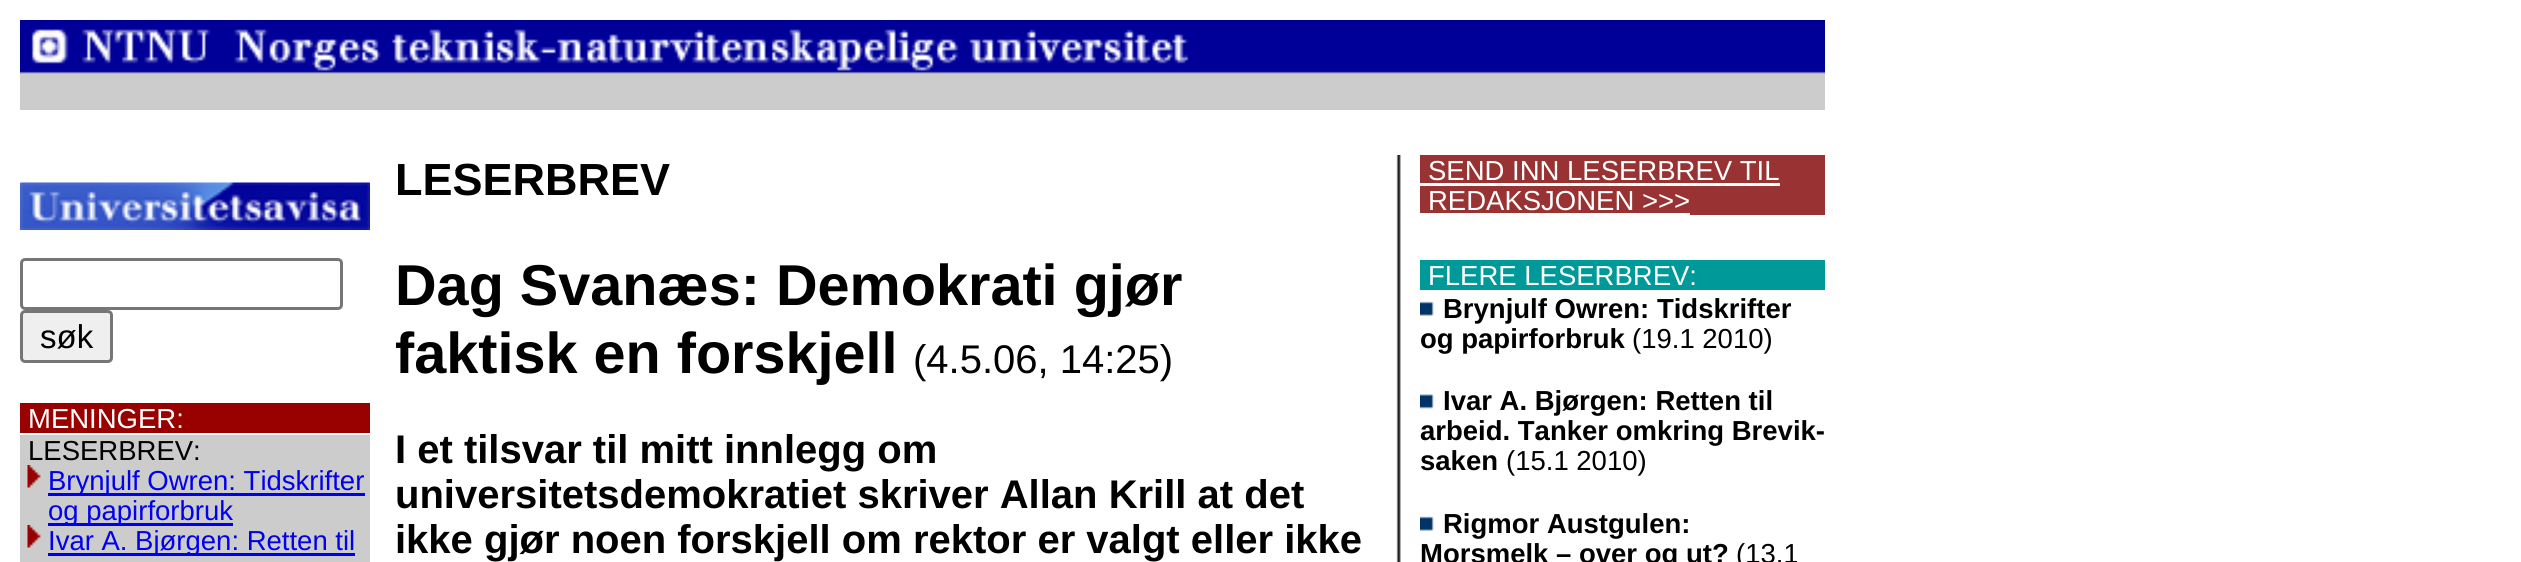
#include <cairo/cairo.h>
#include <math.h>
#include <stddef.h>

static cairo_t *cr;

static void use_color(int r, int g, int b) {
  cairo_set_source_rgb(cr, r / 255.0, g / 255.0, b / 255.0);
}

static void text(double x, double y, const char *s, const char *family, double size, int italic, int bold, int r, int g, int b) {
  cairo_select_font_face(cr, family, italic ? CAIRO_FONT_SLANT_ITALIC : CAIRO_FONT_SLANT_NORMAL,
    bold ? CAIRO_FONT_WEIGHT_BOLD : CAIRO_FONT_WEIGHT_NORMAL);
  cairo_set_font_size(cr, size);
  use_color(r, g, b);
  cairo_move_to(cr, x, y);
  cairo_show_text(cr, s);
}

static void box(double x, double y, double w, double h, int r, int g, int b) {
  use_color(r, g, b);
  cairo_rectangle(cr, x, y, w, h);
  cairo_fill(cr);
}

static void round_rect(double x, double y, double w, double h, double r) {
  cairo_new_sub_path(cr);
  cairo_arc(cr, x + w - r, y + h - r, r, 0, M_PI / 2);
  cairo_arc(cr, x + r, y + h - r, r, M_PI / 2, M_PI);
  cairo_arc(cr, x + r, y + r, r, M_PI, 1.5 * M_PI);
  cairo_arc(cr, x + w - r, y + r, r, 1.5 * M_PI, 2 * M_PI);
  cairo_close_path(cr);
}

static void picture(const char *path, double x, double y, double w, double h) {
  cairo_surface_t *image = cairo_image_surface_create_from_png(path);
  cairo_save(cr);
  cairo_set_source_surface(cr, image, x, y);
  cairo_rectangle(cr, x, y, w, h);
  cairo_fill(cr);
  cairo_restore(cr);
  cairo_surface_destroy(image);
}

static void draw(void) {
  use_color(255, 255, 255);
  cairo_paint(cr);
  picture("img_01.png", 20, 20, 1805, 90);
  picture("img_02.png", 20, 182, 350, 48);
  round_rect(21.5, 259.5, 320, 49, 3.5);
  use_color(118, 118, 118);
  cairo_set_line_width(cr, 3);
  cairo_stroke(cr);
  use_color(239, 239, 239);
  round_rect(21.5, 311.5, 90, 50, 3.5);
  cairo_fill_preserve(cr);
  use_color(118, 118, 118);
  cairo_stroke(cr);
  box(20, 403, 350, 30, 153, 0, 0);
  box(20, 435, 350, 127, 204, 204, 204);
  picture("img_03.png", 27, 465, 14, 23);
  box(48, 493, 317, 3, 0, 0, 238);
  box(48, 523, 185, 3, 0, 0, 238);
  picture("img_03.png", 27, 525, 14, 23);
  box(48, 553, 307, 3, 0, 0, 238);
  picture("img_04.png", 1396, 155, 5, 407);
  box(1420, 155, 405, 60, 153, 51, 51);
  box(1420, 183, 360, 3, 255, 255, 255);
  box(1420, 213, 270, 2, 255, 255, 255);
  box(1420, 260, 405, 30, 0, 153, 153);
  picture("img_05.png", 1420, 301, 14, 15);
  picture("img_06.png", 1420, 394, 14, 15);
  picture("img_07.png", 1420, 516, 14, 15);
  text(40, 348, "søk", "Liberation Sans", 33, 0, 0, 0, 0, 0);
  text(28, 428, "MENINGER:", "Liberation Sans", 27.5, 0, 0, 255, 255, 255);
  text(28, 460, "LESERBREV:", "Liberation Sans", 27.5, 0, 0, 0, 0, 0);
  text(48, 490, "Brynjulf Owren: Tidskrifter", "Liberation Sans", 27.5, 0, 0, 0, 0, 238);
  text(48, 520, "og papirforbruk", "Liberation Sans", 27.5, 0, 0, 0, 0, 238);
  text(48, 550, "Ivar A. Bjørgen: Retten til", "Liberation Sans", 27.5, 0, 0, 0, 0, 238);
  text(395, 195, "LESERBREV", "Liberation Sans", 45, 0, 1, 0, 0, 0);
  text(395, 305, "Dag Svanæs: Demokrati gjør", "Liberation Sans", 57.6, 0, 1, 0, 0, 0);
  text(395, 373, "faktisk en forskjell", "Liberation Sans", 57.6, 0, 1, 0, 0, 0);
  text(913, 373, "(4.5.06, 14:25)", "Liberation Sans", 40, 0, 0, 0, 0, 0);
  text(395, 463, "I et tilsvar til mitt innlegg om", "Liberation Sans", 40, 0, 1, 0, 0, 0);
  text(395, 508, "universitetsdemokratiet skriver Allan Krill at det", "Liberation Sans", 40, 0, 1, 0, 0, 0);
  text(395, 553, "ikke gjør noen forskjell om rektor er valgt eller ikke", "Liberation Sans", 40, 0, 1, 0, 0, 0);
  text(1428, 180, "SEND INN LESERBREV TIL", "Liberation Sans", 27.5, 0, 0, 255, 255, 255);
  text(1428, 210, "REDAKSJONEN >>>", "Liberation Sans", 27.5, 0, 0, 255, 255, 255);
  text(1428, 285, "FLERE LESERBREV:", "Liberation Sans", 27.5, 0, 0, 255, 255, 255);
  text(1443, 318, "Brynjulf Owren: Tidskrifter", "Liberation Sans", 27.5, 0, 1, 0, 0, 0);
  text(1420, 348, "og papirforbruk", "Liberation Sans", 27.5, 0, 1, 0, 0, 0);
  text(1632, 348, "(19.1 2010)", "Liberation Sans", 27.5, 0, 0, 0, 0, 0);
  text(1443, 410, "Ivar A. Bjørgen: Retten til", "Liberation Sans", 27.5, 0, 1, 0, 0, 0);
  text(1420, 440, "arbeid. Tanker omkring Brevik-", "Liberation Sans", 27.5, 0, 1, 0, 0, 0);
  text(1420, 470, "saken", "Liberation Sans", 27.5, 0, 1, 0, 0, 0);
  text(1506, 470, "(15.1 2010)", "Liberation Sans", 27.5, 0, 0, 0, 0, 0);
  text(1443, 533, "Rigmor Austgulen:", "Liberation Sans", 27.5, 0, 1, 0, 0, 0);
  text(1420, 563, "Morsmelk – over og ut?", "Liberation Sans", 27.5, 0, 1, 0, 0, 0);
  text(1736, 563, "(13.1", "Liberation Sans", 27.5, 0, 0, 0, 0, 0);
}

int main(void) {
  cairo_surface_t *surface = cairo_image_surface_create(CAIRO_FORMAT_RGB24, 2521, 562);
  cr = cairo_create(surface);
  cairo_font_options_t *options = cairo_font_options_create();
  cairo_font_options_set_hint_metrics(options, CAIRO_HINT_METRICS_OFF);
  cairo_font_options_set_hint_style(options, CAIRO_HINT_STYLE_NONE);
  cairo_set_font_options(cr, options);
  cairo_set_miter_limit(cr, 4);
  draw();
  cairo_surface_write_to_png(surface, "out.png");
  cairo_font_options_destroy(options);
  cairo_destroy(cr);
  cairo_surface_destroy(surface);
  return 0;
}
